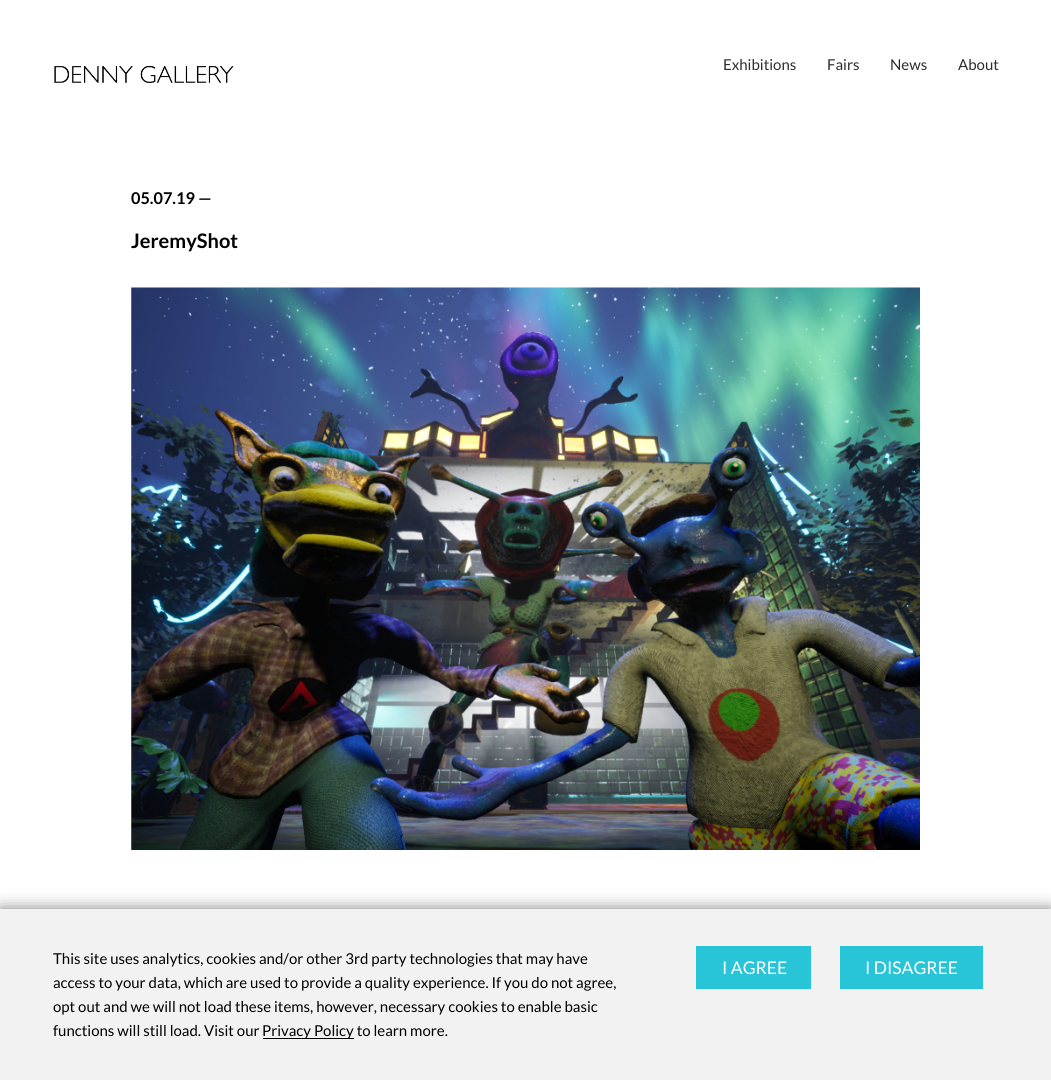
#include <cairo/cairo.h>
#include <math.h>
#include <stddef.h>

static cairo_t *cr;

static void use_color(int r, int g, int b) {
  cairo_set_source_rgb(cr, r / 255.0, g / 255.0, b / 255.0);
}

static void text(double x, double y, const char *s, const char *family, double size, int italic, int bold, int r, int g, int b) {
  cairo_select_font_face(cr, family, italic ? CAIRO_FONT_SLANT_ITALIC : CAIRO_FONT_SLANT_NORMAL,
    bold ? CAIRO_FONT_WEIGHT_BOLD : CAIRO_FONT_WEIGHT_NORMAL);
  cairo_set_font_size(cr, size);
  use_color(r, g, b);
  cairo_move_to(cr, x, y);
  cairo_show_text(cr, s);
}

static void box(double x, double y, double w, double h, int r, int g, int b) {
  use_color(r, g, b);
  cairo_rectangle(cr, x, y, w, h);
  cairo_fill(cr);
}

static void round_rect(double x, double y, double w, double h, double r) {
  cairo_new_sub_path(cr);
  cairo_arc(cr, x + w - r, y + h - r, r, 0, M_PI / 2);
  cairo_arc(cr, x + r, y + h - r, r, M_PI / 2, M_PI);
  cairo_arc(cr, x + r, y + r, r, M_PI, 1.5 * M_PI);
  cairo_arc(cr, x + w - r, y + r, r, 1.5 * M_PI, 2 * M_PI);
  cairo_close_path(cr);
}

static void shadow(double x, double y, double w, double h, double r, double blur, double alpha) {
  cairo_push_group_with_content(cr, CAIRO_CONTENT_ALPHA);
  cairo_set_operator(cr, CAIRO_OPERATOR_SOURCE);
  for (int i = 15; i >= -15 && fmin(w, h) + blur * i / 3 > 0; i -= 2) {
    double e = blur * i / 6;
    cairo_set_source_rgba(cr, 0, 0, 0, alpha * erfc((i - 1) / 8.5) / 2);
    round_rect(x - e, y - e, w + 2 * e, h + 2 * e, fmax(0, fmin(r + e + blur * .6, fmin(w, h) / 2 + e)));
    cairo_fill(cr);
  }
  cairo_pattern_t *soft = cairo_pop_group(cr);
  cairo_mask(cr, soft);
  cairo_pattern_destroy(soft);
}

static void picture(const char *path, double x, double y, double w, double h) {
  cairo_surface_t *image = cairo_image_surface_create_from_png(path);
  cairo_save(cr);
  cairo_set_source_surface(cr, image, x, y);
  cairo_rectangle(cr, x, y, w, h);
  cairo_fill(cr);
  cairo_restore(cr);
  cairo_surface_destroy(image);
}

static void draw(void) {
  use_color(255, 255, 255);
  cairo_paint(cr);
  picture("img_01.png", 54, 65, 180, 18);
  picture("img_02.png", 131, 287, 789, 563);
  use_color(0, 0, 0);
  shadow(0, 909, 1051, 171, 0, 8, 0.5);
  box(0, 909, 1051, 171, 242, 242, 242);
  box(263, 1038, 91, 1, 0, 0, 0);
  box(696, 946, 115, 43, 40, 196, 216);
  box(840, 946, 143, 43, 40, 196, 216);
  text(723, 70, "Exhibitions", "Lato", 15, 0, 0, 44, 45, 46);
  text(827, 70, "Fairs", "Lato", 15, 0, 0, 44, 45, 46);
  text(890, 70, "News", "Lato", 15, 0, 0, 44, 45, 46);
  text(958, 70, "About", "Lato", 15, 0, 0, 44, 45, 46);
  text(131, 204, "05.07.19 —", "Lato", 16.25, 0, 1, 0, 0, 0);
  text(131, 248, "JeremyShot", "Lato", 20, 0, 1, 0, 0, 0);
  text(53, 964, "This site uses analytics, cookies and/or other 3rd party technologies that may have", "Lato", 15, 0, 0, 0, 0, 0);
  text(53, 988, "access to your data, which are used to provide a quality experience. If you do not agree,", "Lato", 15, 0, 0, 0, 0, 0);
  text(53, 1012, "opt out and we will not load these items, however, necessary cookies to enable basic", "Lato", 15, 0, 0, 0, 0, 0);
  text(53, 1036, "functions will still load. Visit our", "Lato", 15, 0, 0, 0, 0, 0);
  text(262, 1036, "Privacy Policy to learn more.", "Lato", 15, 0, 0, 0, 0, 0);
  text(722, 974, "I AGREE", "Lato", 17.5, 0, 0, 255, 255, 255);
  text(865, 974, "I DISAGREE", "Lato", 17.5, 0, 0, 255, 255, 255);
}

int main(void) {
  cairo_surface_t *surface = cairo_image_surface_create(CAIRO_FORMAT_RGB24, 1051, 1080);
  cr = cairo_create(surface);
  cairo_font_options_t *options = cairo_font_options_create();
  cairo_font_options_set_hint_metrics(options, CAIRO_HINT_METRICS_OFF);
  cairo_font_options_set_hint_style(options, CAIRO_HINT_STYLE_NONE);
  cairo_set_font_options(cr, options);
  cairo_set_miter_limit(cr, 4);
  draw();
  cairo_surface_write_to_png(surface, "out.png");
  cairo_font_options_destroy(options);
  cairo_destroy(cr);
  cairo_surface_destroy(surface);
  return 0;
}
